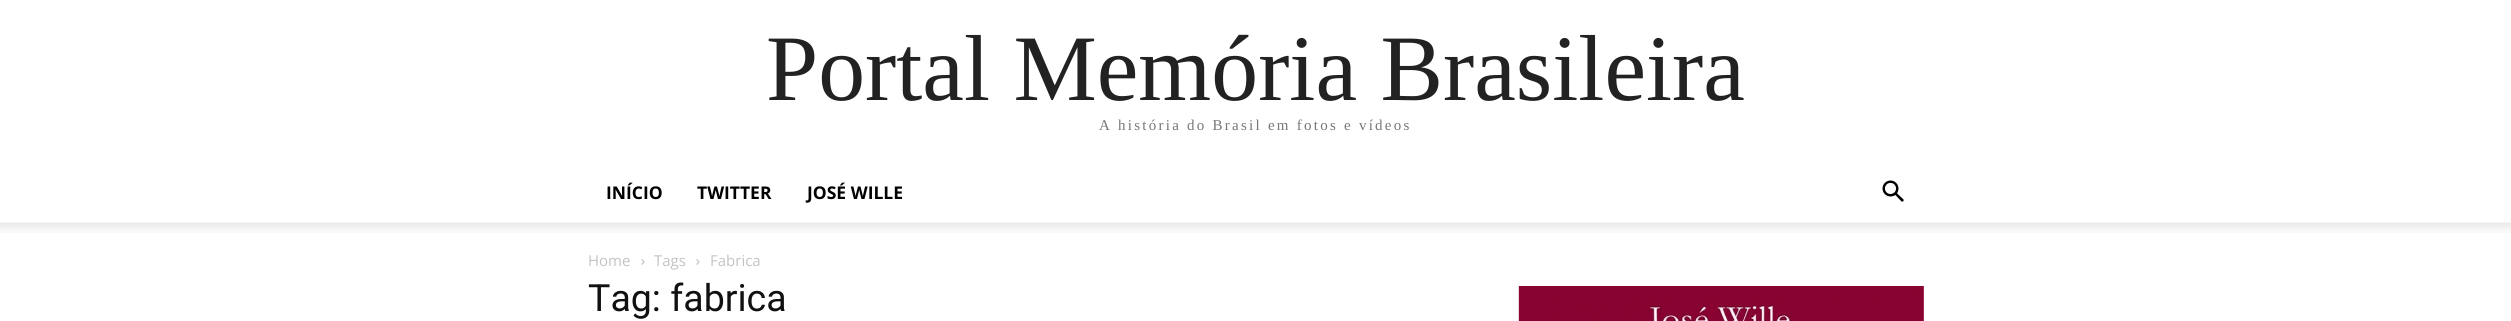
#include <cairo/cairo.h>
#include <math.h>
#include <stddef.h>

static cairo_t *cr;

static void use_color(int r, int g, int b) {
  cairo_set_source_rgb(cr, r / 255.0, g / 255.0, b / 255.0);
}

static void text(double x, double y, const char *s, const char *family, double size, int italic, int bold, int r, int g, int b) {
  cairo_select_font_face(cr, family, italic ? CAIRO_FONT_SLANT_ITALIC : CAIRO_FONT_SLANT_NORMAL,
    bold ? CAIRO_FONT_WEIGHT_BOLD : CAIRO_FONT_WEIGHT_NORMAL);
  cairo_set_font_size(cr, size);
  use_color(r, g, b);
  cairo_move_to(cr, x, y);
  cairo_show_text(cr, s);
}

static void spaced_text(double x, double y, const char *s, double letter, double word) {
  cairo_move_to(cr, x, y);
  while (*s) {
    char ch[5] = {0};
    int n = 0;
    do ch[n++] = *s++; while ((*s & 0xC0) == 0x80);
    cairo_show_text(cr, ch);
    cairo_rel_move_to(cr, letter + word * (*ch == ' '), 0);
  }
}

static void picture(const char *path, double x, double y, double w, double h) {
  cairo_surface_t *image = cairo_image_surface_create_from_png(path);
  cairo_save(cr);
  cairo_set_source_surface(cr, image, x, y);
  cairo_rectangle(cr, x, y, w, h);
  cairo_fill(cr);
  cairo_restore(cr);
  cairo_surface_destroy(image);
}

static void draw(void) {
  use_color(255, 255, 255);
  cairo_paint(cr);
  picture("img_01.png", 1882, 180, 22, 22);
  picture("img_02.png", 0, 222, 2511, 11);
  picture("img_03.png", 641, 259, 4, 6);
  picture("img_03.png", 696, 259, 4, 6);
  picture("img_04.png", 1518, 286, 406, 35);
  text(766, 100, "Portal Memória Brasileira", "Liberation Serif", 93.75, 0, 0, 34, 34, 34);
  cairo_set_font_size(cr, 15);
  use_color(119, 119, 119);
  spaced_text(1099, 130, "A história do Brasil em fotos e vídeos", 2.25, 0);
  text(606, 199, "INÍCIO", "Open Sans", 17.5, 0, 1, 0, 0, 0);
  text(697, 199, "TWITTER", "Open Sans", 17.5, 0, 1, 0, 0, 0);
  text(807, 199, "JOSÉ WILLE", "Open Sans", 17.5, 0, 1, 0, 0, 0);
  text(588, 266, "Home", "Open Sans", 15, 0, 0, 195, 195, 195);
  text(654, 266, "Tags", "Open Sans", 15, 0, 0, 195, 195, 195);
  text(710, 266, "Fabrica", "Open Sans", 15, 0, 0, 195, 195, 195);
  text(588, 311, "Tag: fabrica", "Roboto", 37.5, 0, 0, 17, 17, 17);
}

int main(void) {
  cairo_surface_t *surface = cairo_image_surface_create(CAIRO_FORMAT_RGB24, 2511, 321);
  cr = cairo_create(surface);
  cairo_font_options_t *options = cairo_font_options_create();
  cairo_font_options_set_hint_metrics(options, CAIRO_HINT_METRICS_OFF);
  cairo_font_options_set_hint_style(options, CAIRO_HINT_STYLE_NONE);
  cairo_set_font_options(cr, options);
  cairo_set_miter_limit(cr, 4);
  draw();
  cairo_surface_write_to_png(surface, "out.png");
  cairo_font_options_destroy(options);
  cairo_destroy(cr);
  cairo_surface_destroy(surface);
  return 0;
}
